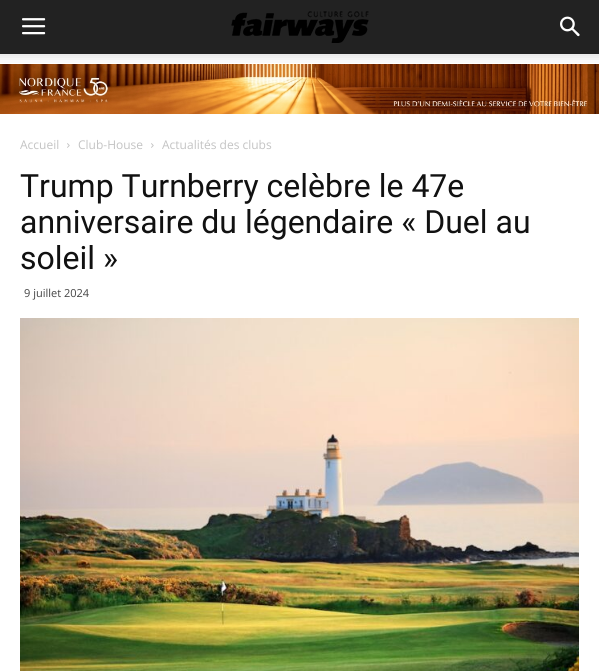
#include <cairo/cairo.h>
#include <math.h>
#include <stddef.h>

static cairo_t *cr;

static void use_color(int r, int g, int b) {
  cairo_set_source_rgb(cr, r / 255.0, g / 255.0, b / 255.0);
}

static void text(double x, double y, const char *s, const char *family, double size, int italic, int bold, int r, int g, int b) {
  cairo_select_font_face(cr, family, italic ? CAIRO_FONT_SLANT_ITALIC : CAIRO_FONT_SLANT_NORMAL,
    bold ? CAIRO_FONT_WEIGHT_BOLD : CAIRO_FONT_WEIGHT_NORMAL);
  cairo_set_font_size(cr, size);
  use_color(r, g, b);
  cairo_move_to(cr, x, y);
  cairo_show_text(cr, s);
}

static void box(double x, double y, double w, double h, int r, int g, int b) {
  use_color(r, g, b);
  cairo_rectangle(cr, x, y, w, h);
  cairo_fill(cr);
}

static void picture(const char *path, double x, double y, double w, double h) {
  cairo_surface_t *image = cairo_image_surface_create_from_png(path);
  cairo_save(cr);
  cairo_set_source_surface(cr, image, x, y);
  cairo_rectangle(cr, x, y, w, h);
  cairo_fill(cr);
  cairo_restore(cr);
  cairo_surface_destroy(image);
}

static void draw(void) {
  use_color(255, 255, 255);
  cairo_paint(cr);
  box(0, 0, 599, 54, 34, 34, 34);
  picture("img_01.png", 22, 18, 24, 17);
  picture("img_02.png", 231, 11, 138, 32);
  picture("img_03.png", 560, 16, 20, 21);
  picture("img_04.png", 0, 54, 599, 9);
  picture("img_05.png", 0, 64, 599, 50);
  picture("img_06.png", 67, 143, 3, 5);
  picture("img_06.png", 151, 143, 3, 5);
  picture("img_07.png", 20, 318, 559, 353);
  text(20, 149, "Accueil", "Open Sans", 12, 0, 0, 195, 195, 195);
  text(78, 149, "Club-House", "Open Sans", 12, 0, 0, 195, 195, 195);
  text(162, 149, "Actualités des clubs", "Open Sans", 12, 0, 0, 195, 195, 195);
  text(20, 197, "Trump Turnberry celèbre le 47e", "Roboto", 32, 0, 0, 17, 17, 17);
  text(20, 233, "anniversaire du légendaire « Duel au", "Roboto", 32, 0, 0, 17, 17, 17);
  text(20, 269, "soleil »", "Roboto", 32, 0, 0, 17, 17, 17);
  text(24, 297, "9 juillet 2024", "Open Sans", 11, 0, 0, 68, 68, 68);
}

int main(void) {
  cairo_surface_t *surface = cairo_image_surface_create(CAIRO_FORMAT_RGB24, 599, 671);
  cr = cairo_create(surface);
  cairo_font_options_t *options = cairo_font_options_create();
  cairo_font_options_set_hint_metrics(options, CAIRO_HINT_METRICS_OFF);
  cairo_font_options_set_hint_style(options, CAIRO_HINT_STYLE_NONE);
  cairo_set_font_options(cr, options);
  cairo_set_miter_limit(cr, 4);
  draw();
  cairo_surface_write_to_png(surface, "out.png");
  cairo_font_options_destroy(options);
  cairo_destroy(cr);
  cairo_surface_destroy(surface);
  return 0;
}
